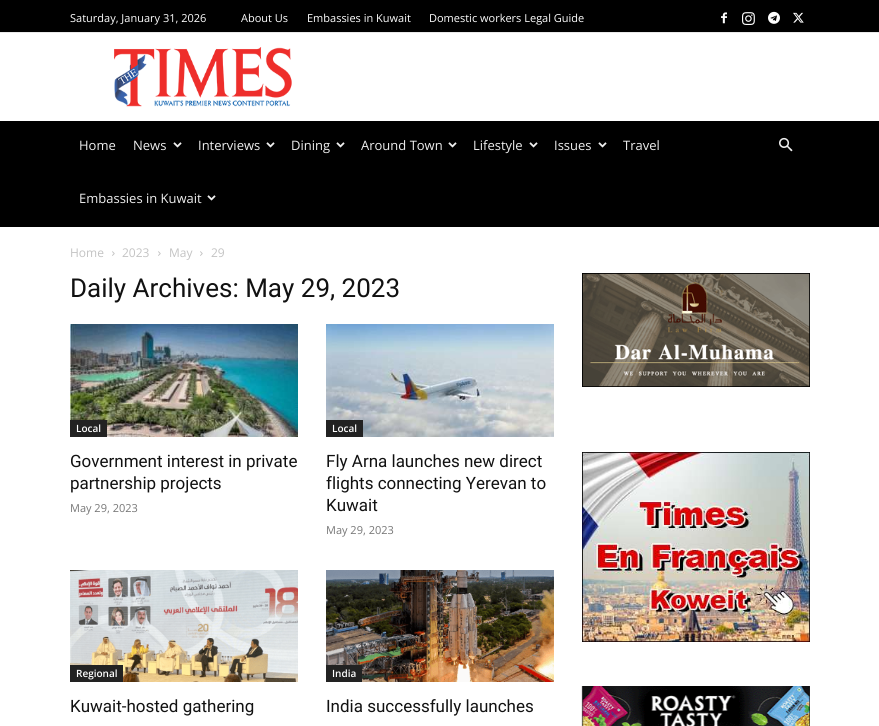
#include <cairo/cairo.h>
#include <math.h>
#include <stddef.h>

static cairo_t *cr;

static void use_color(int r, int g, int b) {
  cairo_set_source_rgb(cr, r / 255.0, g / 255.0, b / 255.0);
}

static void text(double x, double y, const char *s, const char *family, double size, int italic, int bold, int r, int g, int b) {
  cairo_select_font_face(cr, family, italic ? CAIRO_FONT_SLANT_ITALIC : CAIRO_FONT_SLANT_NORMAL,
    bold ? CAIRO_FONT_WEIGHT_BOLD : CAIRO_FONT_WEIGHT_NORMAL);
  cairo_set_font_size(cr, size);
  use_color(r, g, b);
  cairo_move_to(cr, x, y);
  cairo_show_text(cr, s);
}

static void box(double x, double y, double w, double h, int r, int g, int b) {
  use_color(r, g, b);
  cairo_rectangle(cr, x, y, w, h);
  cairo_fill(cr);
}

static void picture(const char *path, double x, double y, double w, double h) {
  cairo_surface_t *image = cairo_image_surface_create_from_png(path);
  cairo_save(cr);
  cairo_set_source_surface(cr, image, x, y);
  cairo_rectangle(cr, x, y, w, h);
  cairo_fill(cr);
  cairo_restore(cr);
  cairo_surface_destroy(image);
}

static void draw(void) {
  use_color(255, 255, 255);
  cairo_paint(cr);
  box(0, 0, 879, 32, 0, 0, 0);
  box(0, 32, 879, 1, 233, 233, 233);
  picture("img_01.png", 721, 12, 6, 12);
  picture("img_02.png", 742, 12, 13, 13);
  picture("img_03.png", 768, 11, 12, 13);
  picture("img_04.png", 793, 12, 11, 11);
  picture("img_05.png", 114, 47, 178, 60);
  box(0, 121, 879, 106, 0, 0, 0);
  picture("img_06.png", 173, 142, 9, 6);
  picture("img_06.png", 266, 142, 9, 6);
  picture("img_06.png", 336, 142, 9, 6);
  picture("img_06.png", 448, 142, 9, 6);
  picture("img_06.png", 529, 142, 9, 6);
  picture("img_06.png", 598, 142, 9, 6);
  picture("img_06.png", 207, 195, 9, 6);
  picture("img_07.png", 779, 137, 14, 15);
  picture("img_08.png", 112, 251, 3, 5);
  picture("img_08.png", 158, 251, 3, 5);
  picture("img_08.png", 200, 251, 3, 5);
  picture("img_09.png", 70, 324, 228, 113);
  box(70, 420, 37, 17, 34, 34, 34);
  picture("img_10.png", 326, 324, 228, 113);
  box(326, 420, 37, 17, 34, 34, 34);
  picture("img_11.png", 70, 570, 228, 112);
  box(70, 665, 53, 17, 34, 34, 34);
  picture("img_12.png", 326, 570, 228, 112);
  box(326, 665, 36, 17, 34, 34, 34);
  picture("img_13.png", 582, 273, 228, 114);
  picture("img_14.png", 582, 452, 228, 190);
  picture("img_15.png", 581, 686, 229, 40);
  text(70, 22, "Saturday, January 31, 2026", "Open Sans", 11, 0, 0, 255, 255, 255);
  text(241, 22, "About Us", "Open Sans", 11, 0, 0, 255, 255, 255);
  text(307, 22, "Embassies in Kuwait", "Open Sans", 11, 0, 0, 255, 255, 255);
  text(429, 22, "Domestic workers Legal Guide", "Open Sans", 11, 0, 0, 255, 255, 255);
  text(79, 150, "Home", "Open Sans", 13, 0, 0, 239, 239, 239);
  text(133, 150, "News", "Open Sans", 13, 0, 0, 239, 239, 239);
  text(198, 150, "Interviews", "Open Sans", 13, 0, 0, 239, 239, 239);
  text(291, 150, "Dining", "Open Sans", 13, 0, 0, 239, 239, 239);
  text(361, 150, "Around Town", "Open Sans", 13, 0, 0, 239, 239, 239);
  text(473, 150, "Lifestyle", "Open Sans", 13, 0, 0, 239, 239, 239);
  text(554, 150, "Issues", "Open Sans", 13, 0, 0, 239, 239, 239);
  text(623, 150, "Travel", "Open Sans", 13, 0, 0, 239, 239, 239);
  text(79, 203, "Embassies in Kuwait", "Open Sans", 13, 0, 0, 239, 239, 239);
  text(70, 257, "Home", "Open Sans", 12, 0, 0, 195, 195, 195);
  text(122, 257, "2023", "Open Sans", 12, 0, 0, 195, 195, 195);
  text(169, 257, "May", "Open Sans", 12, 0, 0, 195, 195, 195);
  text(211, 257, "29", "Open Sans", 12, 0, 0, 195, 195, 195);
  text(70, 297, "Daily Archives: May 29, 2023", "Roboto", 26, 0, 0, 17, 17, 17);
  text(76, 432, "Local", "Open Sans SemiBold", 10, 0, 0, 255, 255, 255);
  text(70, 467, "Government interest in private", "Roboto", 17, 0, 0, 17, 17, 17);
  text(70, 489, "partnership projects", "Roboto", 17, 0, 0, 17, 17, 17);
  text(70, 512, "May 29, 2023", "Open Sans", 11, 0, 0, 118, 118, 118);
  text(332, 432, "Local", "Open Sans SemiBold", 10, 0, 0, 255, 255, 255);
  text(326, 467, "Fly Arna launches new direct", "Roboto", 17, 0, 0, 17, 17, 17);
  text(326, 489, "flights connecting Yerevan to", "Roboto", 17, 0, 0, 17, 17, 17);
  text(326, 511, "Kuwait", "Roboto", 17, 0, 0, 17, 17, 17);
  text(326, 534, "May 29, 2023", "Open Sans", 11, 0, 0, 118, 118, 118);
  text(76, 677, "Regional", "Open Sans SemiBold", 10, 0, 0, 255, 255, 255);
  text(70, 712, "Kuwait-hosted gathering", "Roboto", 17, 0, 0, 17, 17, 17);
  text(332, 677, "India", "Open Sans SemiBold", 10, 0, 0, 255, 255, 255);
  text(326, 712, "India successfully launches", "Roboto", 17, 0, 0, 17, 17, 17);
}

int main(void) {
  cairo_surface_t *surface = cairo_image_surface_create(CAIRO_FORMAT_RGB24, 879, 726);
  cr = cairo_create(surface);
  cairo_font_options_t *options = cairo_font_options_create();
  cairo_font_options_set_hint_metrics(options, CAIRO_HINT_METRICS_OFF);
  cairo_font_options_set_hint_style(options, CAIRO_HINT_STYLE_NONE);
  cairo_set_font_options(cr, options);
  cairo_set_miter_limit(cr, 4);
  draw();
  cairo_surface_write_to_png(surface, "out.png");
  cairo_font_options_destroy(options);
  cairo_destroy(cr);
  cairo_surface_destroy(surface);
  return 0;
}
